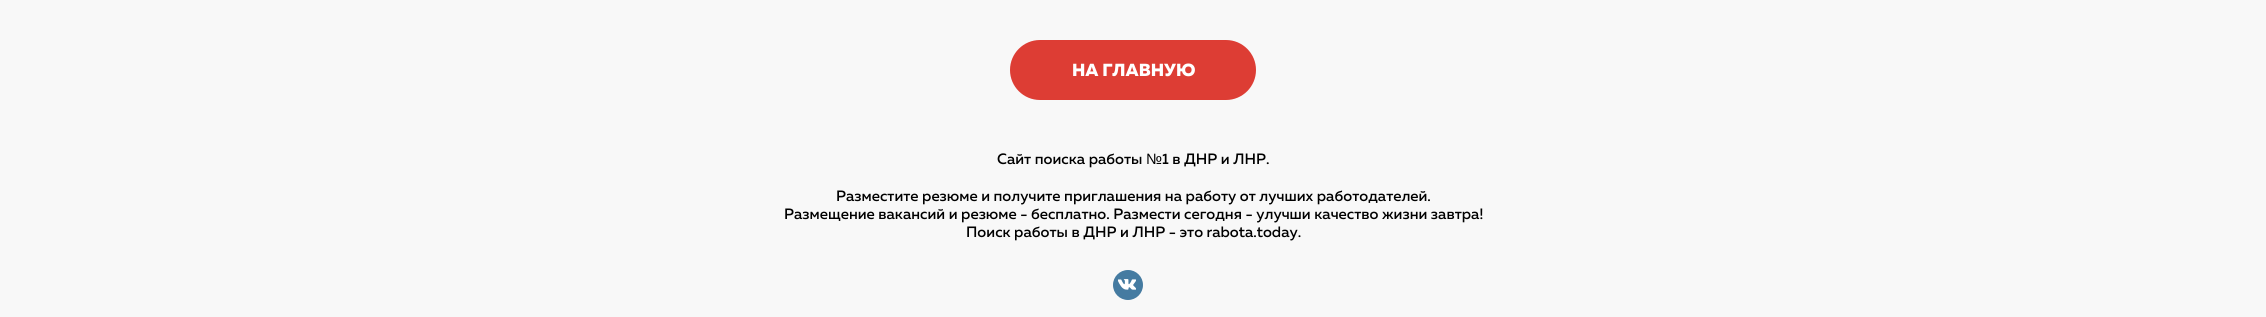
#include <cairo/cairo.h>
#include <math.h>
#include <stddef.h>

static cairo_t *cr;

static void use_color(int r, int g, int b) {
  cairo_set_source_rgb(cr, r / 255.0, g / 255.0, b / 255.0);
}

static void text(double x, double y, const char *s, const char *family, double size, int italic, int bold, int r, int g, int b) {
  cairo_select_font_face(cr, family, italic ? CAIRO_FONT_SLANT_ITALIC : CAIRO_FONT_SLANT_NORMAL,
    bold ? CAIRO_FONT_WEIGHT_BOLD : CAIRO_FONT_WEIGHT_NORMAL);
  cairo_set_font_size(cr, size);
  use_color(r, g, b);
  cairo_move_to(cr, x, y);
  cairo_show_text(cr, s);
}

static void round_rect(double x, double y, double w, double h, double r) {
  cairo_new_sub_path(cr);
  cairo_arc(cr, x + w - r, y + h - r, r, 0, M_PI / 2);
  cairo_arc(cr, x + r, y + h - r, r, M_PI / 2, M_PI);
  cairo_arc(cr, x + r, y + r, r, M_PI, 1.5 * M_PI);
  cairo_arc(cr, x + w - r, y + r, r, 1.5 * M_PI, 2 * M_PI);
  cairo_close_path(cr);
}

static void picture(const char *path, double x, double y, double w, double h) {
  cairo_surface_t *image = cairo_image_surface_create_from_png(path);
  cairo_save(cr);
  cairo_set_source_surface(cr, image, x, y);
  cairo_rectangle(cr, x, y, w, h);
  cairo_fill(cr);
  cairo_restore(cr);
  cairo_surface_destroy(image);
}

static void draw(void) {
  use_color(248, 248, 248);
  cairo_paint(cr);
  use_color(221, 61, 52);
  round_rect(1010, 40, 246, 60, 30);
  cairo_fill(cr);
  use_color(69, 123, 161);
  cairo_arc(cr, 1128, 285, 15, 0, 2 * M_PI);
  cairo_fill(cr);
  picture("img_01.png", 1118, 279, 18, 11);
  text(1072, 76, "НА ГЛАВНУЮ", "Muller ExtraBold", 17.5, 0, 0, 255, 255, 255);
  text(997, 164, "Сайт поиска работы", "Muller Medium", 15, 0, 0, 0, 0, 0);
  text(1146, 164, "№", "Liberation Sans", 15, 0, 0, 0, 0, 0);
  text(1162, 164, "1 в ДНР и ЛНР.", "Muller Medium", 15, 0, 0, 0, 0, 0);
  text(836, 201, "Разместите резюме и получите приглашения на работу от лучших работодателей.", "Muller Medium", 15, 0, 0, 0, 0, 0);
  text(784, 219, "Размещение вакансий и резюме - бесплатно. Размести сегодня - улучши качество жизни завтра!", "Muller Medium", 15, 0, 0, 0, 0, 0);
  text(966, 237, "Поиск работы в ДНР и ЛНР - это rabota.today.", "Muller Medium", 15, 0, 0, 0, 0, 0);
}

int main(void) {
  cairo_surface_t *surface = cairo_image_surface_create(CAIRO_FORMAT_RGB24, 2266, 317);
  cr = cairo_create(surface);
  cairo_font_options_t *options = cairo_font_options_create();
  cairo_font_options_set_hint_metrics(options, CAIRO_HINT_METRICS_OFF);
  cairo_font_options_set_hint_style(options, CAIRO_HINT_STYLE_NONE);
  cairo_set_font_options(cr, options);
  cairo_set_miter_limit(cr, 4);
  draw();
  cairo_surface_write_to_png(surface, "out.png");
  cairo_font_options_destroy(options);
  cairo_destroy(cr);
  cairo_surface_destroy(surface);
  return 0;
}
